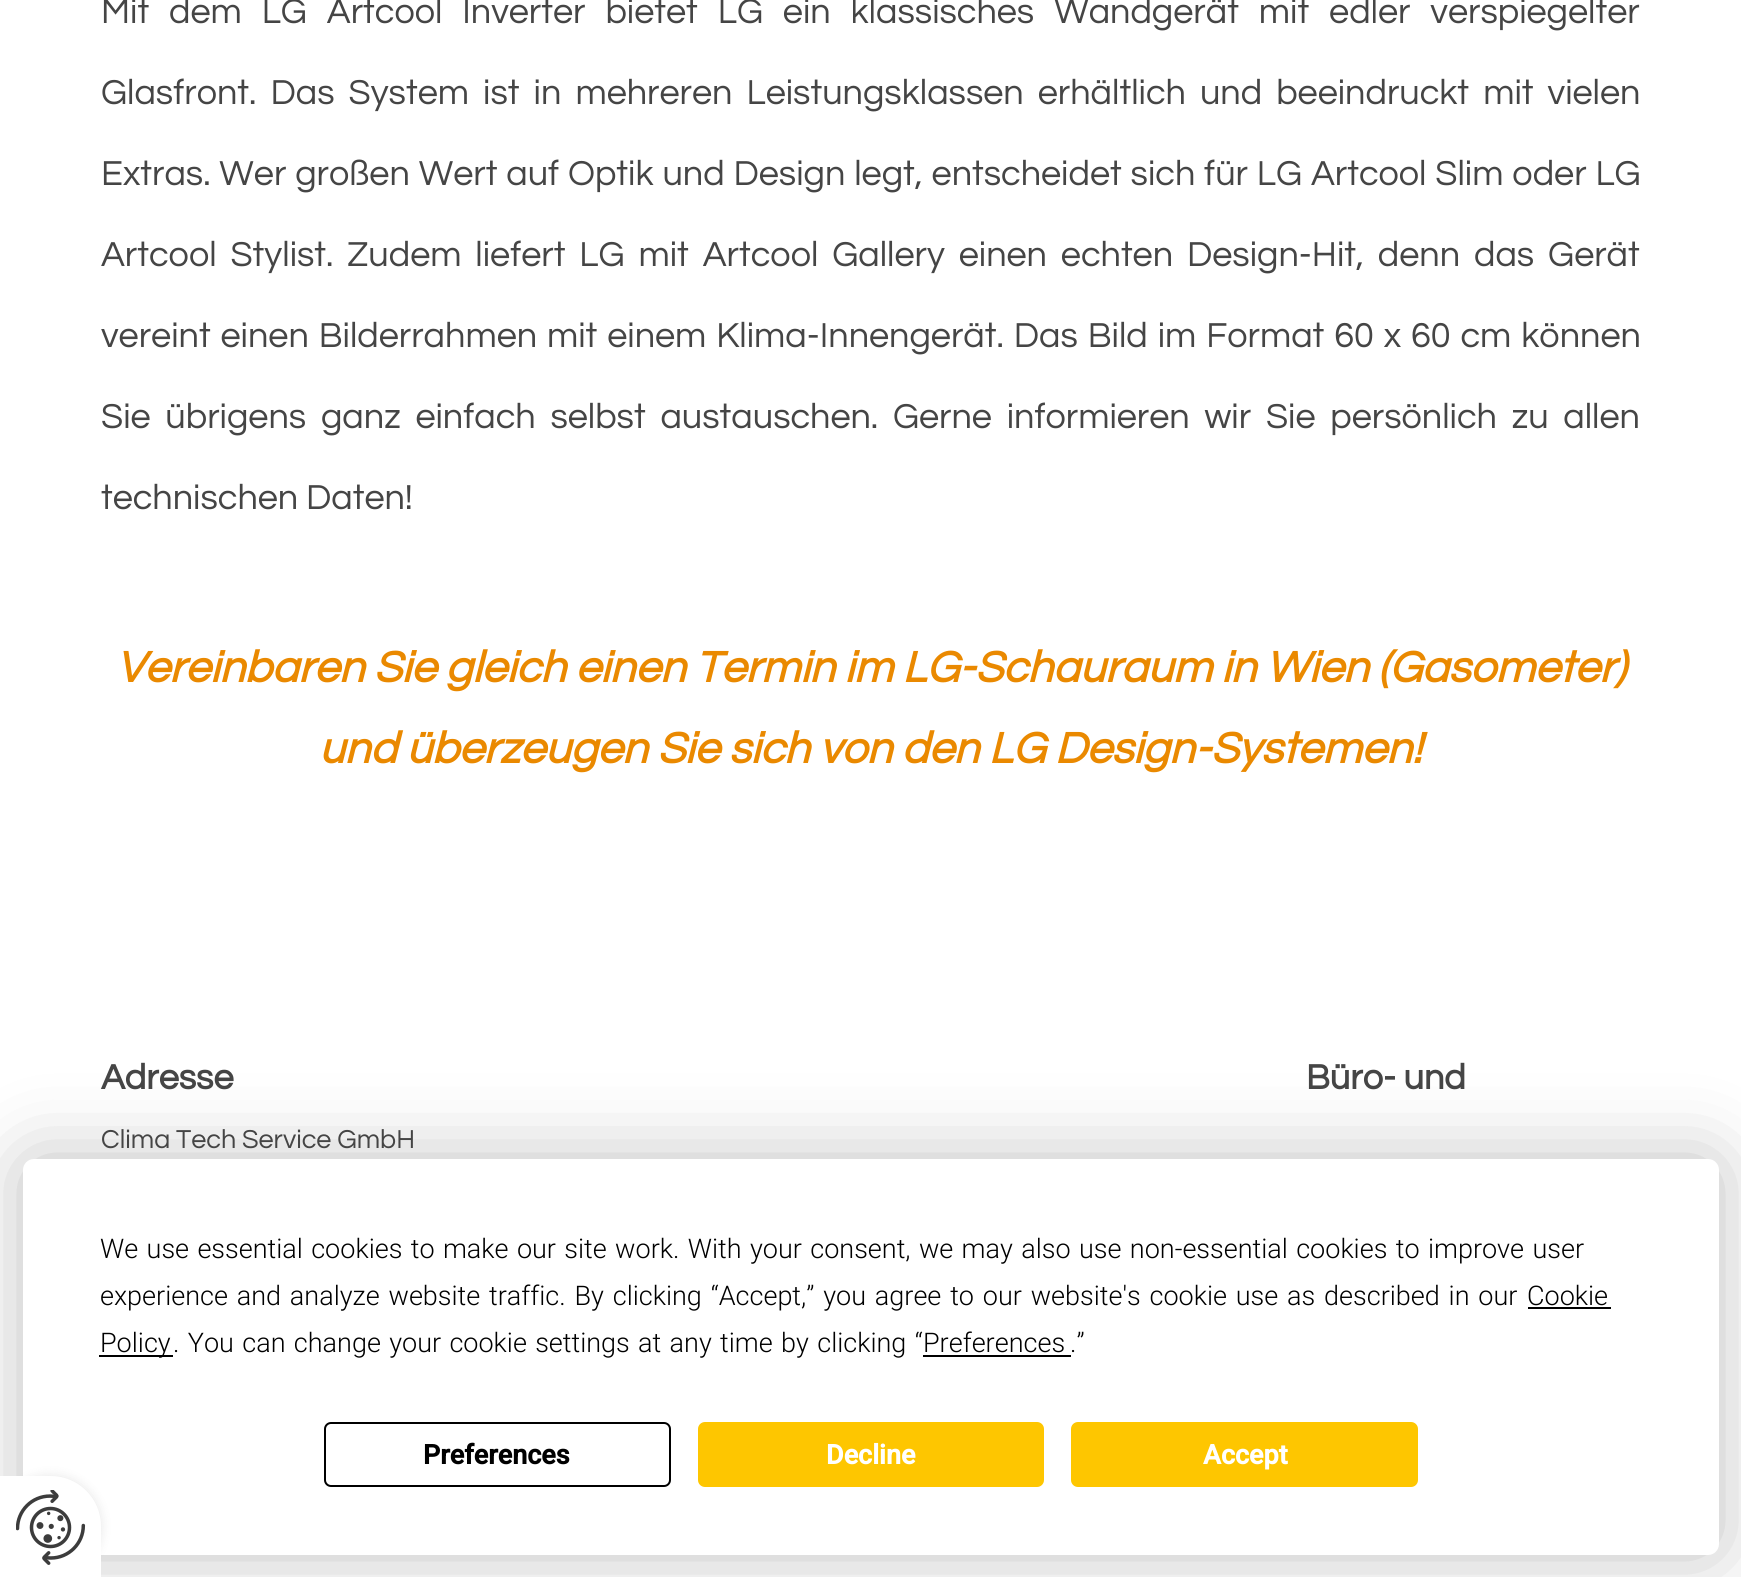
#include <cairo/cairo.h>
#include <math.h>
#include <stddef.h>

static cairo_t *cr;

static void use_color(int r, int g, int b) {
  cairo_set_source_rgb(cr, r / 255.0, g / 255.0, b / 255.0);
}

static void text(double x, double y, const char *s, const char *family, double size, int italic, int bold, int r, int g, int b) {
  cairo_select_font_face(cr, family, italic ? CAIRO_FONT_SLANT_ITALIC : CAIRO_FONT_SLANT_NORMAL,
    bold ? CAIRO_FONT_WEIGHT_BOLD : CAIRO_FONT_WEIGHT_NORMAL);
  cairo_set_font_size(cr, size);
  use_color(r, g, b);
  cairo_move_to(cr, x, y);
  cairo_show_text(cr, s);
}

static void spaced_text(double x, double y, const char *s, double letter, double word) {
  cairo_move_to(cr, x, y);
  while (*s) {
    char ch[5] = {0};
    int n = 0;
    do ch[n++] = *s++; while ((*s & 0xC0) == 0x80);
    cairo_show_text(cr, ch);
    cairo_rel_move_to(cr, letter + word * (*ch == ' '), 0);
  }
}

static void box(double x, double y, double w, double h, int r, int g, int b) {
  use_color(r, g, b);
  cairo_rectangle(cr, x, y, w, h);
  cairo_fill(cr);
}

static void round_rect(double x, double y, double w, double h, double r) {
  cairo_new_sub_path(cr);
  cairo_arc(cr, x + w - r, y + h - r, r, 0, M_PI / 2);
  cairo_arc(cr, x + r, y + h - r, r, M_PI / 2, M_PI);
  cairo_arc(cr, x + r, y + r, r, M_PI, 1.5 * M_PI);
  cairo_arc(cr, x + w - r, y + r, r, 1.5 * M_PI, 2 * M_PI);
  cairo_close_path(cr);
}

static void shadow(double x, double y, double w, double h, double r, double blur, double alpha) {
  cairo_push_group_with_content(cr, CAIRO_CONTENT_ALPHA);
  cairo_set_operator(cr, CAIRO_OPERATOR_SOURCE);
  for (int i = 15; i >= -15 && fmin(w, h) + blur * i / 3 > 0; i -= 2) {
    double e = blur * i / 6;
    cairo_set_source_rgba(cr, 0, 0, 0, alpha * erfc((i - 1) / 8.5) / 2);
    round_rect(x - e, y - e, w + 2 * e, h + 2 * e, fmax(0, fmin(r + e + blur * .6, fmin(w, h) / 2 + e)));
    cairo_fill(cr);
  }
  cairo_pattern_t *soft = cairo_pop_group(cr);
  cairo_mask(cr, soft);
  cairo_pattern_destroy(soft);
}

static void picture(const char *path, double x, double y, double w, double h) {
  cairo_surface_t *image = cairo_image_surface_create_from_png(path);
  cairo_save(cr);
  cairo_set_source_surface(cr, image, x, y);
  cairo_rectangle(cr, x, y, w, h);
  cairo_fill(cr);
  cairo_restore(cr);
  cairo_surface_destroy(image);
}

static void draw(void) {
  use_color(255, 255, 255);
  cairo_paint(cr);
  use_color(0, 0, 0);
  shadow(23, 1159, 1696, 396, 11, 39.5, 0.25);
  use_color(255, 255, 255);
  round_rect(23, 1159, 1696, 396, 11);
  cairo_fill(cr);
  box(1528, 1307, 83, 2, 0, 0, 0);
  box(99, 1355, 74, 2, 0, 0, 0);
  box(923, 1355, 148, 2, 0, 0, 0);
  round_rect(325, 1423, 345, 63, 6);
  cairo_stroke(cr);
  use_color(254, 198, 0);
  round_rect(699, 1423, 344, 63, 6);
  cairo_fill_preserve(cr);
  cairo_stroke(cr);
  round_rect(1072, 1423, 345, 63, 6);
  cairo_fill_preserve(cr);
  cairo_stroke(cr);
  use_color(0, 0, 0);
  shadow(0, 1476, 101, 101, 50.5, 5.5, 0.1);
  use_color(255, 255, 255);
  cairo_new_path(cr);
  cairo_move_to(cr, 0, 1476);
  cairo_line_to(cr, 50.5, 1476);
  cairo_curve_to(cr, 78.5, 1476, 101, 1498.5, 101, 1526.5);
  cairo_line_to(cr, 101, 1577);
  cairo_line_to(cr, 0, 1577);
  cairo_close_path(cr);
  cairo_fill(cr);
  picture("img_01.png", 16, 1490, 70, 75);
  cairo_select_font_face(cr, "Questrial", CAIRO_FONT_SLANT_NORMAL, CAIRO_FONT_WEIGHT_NORMAL);
  cairo_set_font_size(cr, 36);
  use_color(69, 69, 69);
  spaced_text(101, 23, "Mit dem LG Artcool Inverter bietet LG ein klassisches Wandgerät mit edler verspiegelter", 0, 12.25);
  spaced_text(101, 104, "Glasfront. Das System ist in mehreren Leistungsklassen erhältlich und beeindruckt mit vielen", 0, 6.4);
  spaced_text(101, 185, "Extras. Wer großen Wert auf Optik und Design legt, entscheidet sich für LG Artcool Slim oder LG", 0, 1.2);
  spaced_text(101, 266, "Artcool Stylist. Zudem liefert LG mit Artcool Gallery einen echten Design-Hit, denn das Gerät", 0, 6.25);
  spaced_text(101, 347, "vereint einen Bilderrahmen mit einem Klima-Innengerät. Das Bild im Format 60 x 60 cm können", 0, 2.25);
  spaced_text(101, 428, "Sie übrigens ganz einfach selbst austauschen. Gerne informieren wir Sie persönlich zu allen", 0, 7.1);
  text(101, 509, "technischen Daten!", "Questrial", 36, 0, 0, 69, 69, 69);
  text(116, 682, "Vereinbaren Sie gleich einen Termin im LG-Schauraum in Wien (Gasometer)", "Questrial", 45, 1, 1, 234, 137, 0);
  text(319, 763, "und überzeugen Sie sich von den LG Design-Systemen!", "Questrial", 45, 1, 1, 234, 137, 0);
  text(101, 1089, "Adresse", "Questrial", 36, 0, 1, 69, 69, 69);
  text(101, 1148, "Clima Tech Service GmbH", "Questrial", 27, 0, 0, 69, 69, 69);
  text(1306, 1089, "Büro- und", "Questrial", 36, 0, 1, 69, 69, 69);
  cairo_select_font_face(cr, "Roboto Light", CAIRO_FONT_SLANT_NORMAL, CAIRO_FONT_WEIGHT_NORMAL);
  cairo_set_font_size(cr, 27);
  use_color(0, 0, 0);
  spaced_text(100, 1258, "We use essential cookies to make our site work. With your consent, we may also use non-essential cookies to improve user", 0, 1.8);
  spaced_text(100, 1305, "experience and analyze website traffic. By clicking “Accept,” you agree to our website's cookie use as described in our", 0, 2.25);
  text(1527, 1305, "Cookie", "Roboto Light", 27, 0, 0, 0, 0, 0);
  text(100, 1352, "Policy", "Roboto Light", 27, 0, 0, 0, 0, 0);
  spaced_text(173, 1352, ". You can change your cookie settings at any time by clicking “", 0, 1.75);
  text(923, 1352, "Preferences", "Roboto Light", 27, 0, 0, 0, 0, 0);
  text(1070, 1352, ".”", "Roboto Light", 27, 0, 0, 0, 0, 0);
  text(423, 1464, "Preferences", "Roboto", 27, 0, 1, 0, 0, 0);
  text(826, 1464, "Decline", "Roboto", 27, 0, 1, 255, 255, 255);
  text(1203, 1464, "Accept", "Roboto", 27, 0, 1, 255, 255, 255);
}

int main(void) {
  cairo_surface_t *surface = cairo_image_surface_create(CAIRO_FORMAT_RGB24, 1741, 1577);
  cr = cairo_create(surface);
  cairo_font_options_t *options = cairo_font_options_create();
  cairo_font_options_set_hint_metrics(options, CAIRO_HINT_METRICS_OFF);
  cairo_font_options_set_hint_style(options, CAIRO_HINT_STYLE_NONE);
  cairo_set_font_options(cr, options);
  cairo_set_miter_limit(cr, 4);
  draw();
  cairo_surface_write_to_png(surface, "out.png");
  cairo_font_options_destroy(options);
  cairo_destroy(cr);
  cairo_surface_destroy(surface);
  return 0;
}
